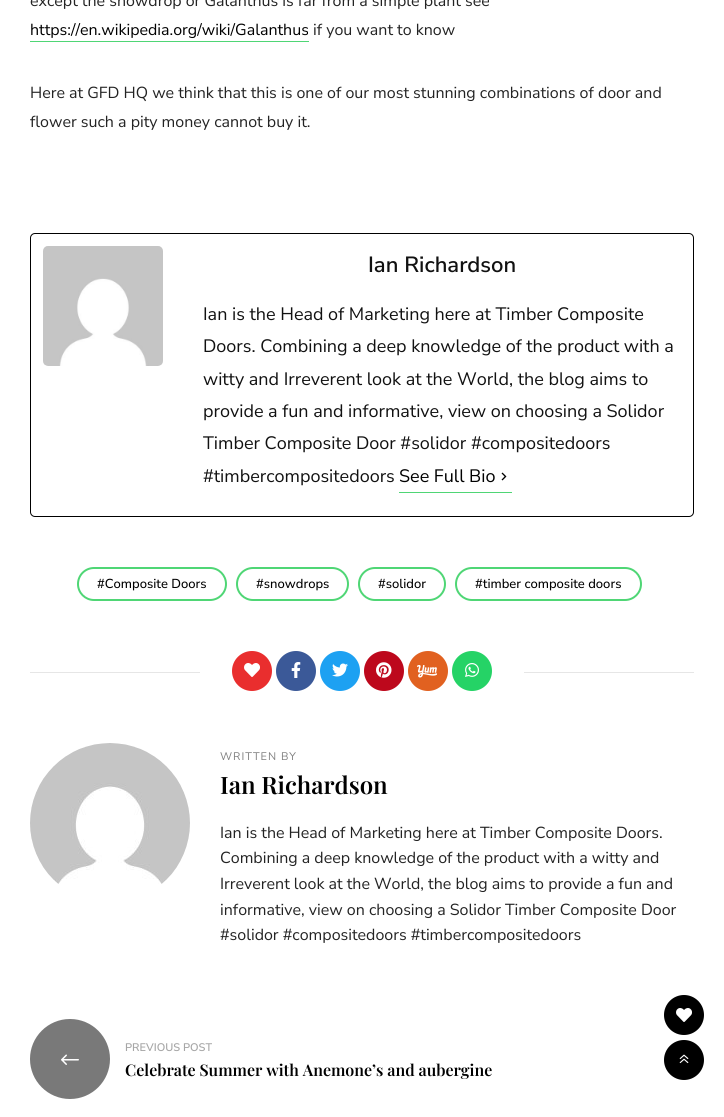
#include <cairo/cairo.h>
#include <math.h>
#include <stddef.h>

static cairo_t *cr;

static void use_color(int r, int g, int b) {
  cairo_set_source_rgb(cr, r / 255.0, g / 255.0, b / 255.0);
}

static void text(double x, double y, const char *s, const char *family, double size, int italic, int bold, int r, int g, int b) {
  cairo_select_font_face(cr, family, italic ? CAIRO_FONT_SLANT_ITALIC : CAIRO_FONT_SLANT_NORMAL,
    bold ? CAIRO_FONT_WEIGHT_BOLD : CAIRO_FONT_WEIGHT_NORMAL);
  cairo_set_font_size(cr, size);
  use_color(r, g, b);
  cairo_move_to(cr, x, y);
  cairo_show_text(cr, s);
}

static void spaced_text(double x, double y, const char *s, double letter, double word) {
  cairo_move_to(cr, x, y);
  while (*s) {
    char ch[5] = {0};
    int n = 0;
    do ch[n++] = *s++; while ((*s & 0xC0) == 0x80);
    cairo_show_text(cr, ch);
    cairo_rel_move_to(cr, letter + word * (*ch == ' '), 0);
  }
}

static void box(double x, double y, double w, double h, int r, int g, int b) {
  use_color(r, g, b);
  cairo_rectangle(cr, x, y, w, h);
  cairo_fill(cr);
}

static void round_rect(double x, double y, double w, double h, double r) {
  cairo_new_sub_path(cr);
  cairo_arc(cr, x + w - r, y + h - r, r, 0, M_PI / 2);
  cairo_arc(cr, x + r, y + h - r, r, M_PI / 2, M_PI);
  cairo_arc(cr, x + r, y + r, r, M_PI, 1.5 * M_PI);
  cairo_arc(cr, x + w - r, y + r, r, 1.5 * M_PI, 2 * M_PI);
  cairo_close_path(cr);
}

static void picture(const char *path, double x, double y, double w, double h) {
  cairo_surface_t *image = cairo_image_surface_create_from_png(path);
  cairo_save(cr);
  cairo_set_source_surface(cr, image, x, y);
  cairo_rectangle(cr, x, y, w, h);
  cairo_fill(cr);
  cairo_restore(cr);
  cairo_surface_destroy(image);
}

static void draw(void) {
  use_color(255, 255, 255);
  cairo_paint(cr);
  box(30, 41, 279, 1, 79, 214, 117);
  round_rect(30.5, 233.5, 663, 283, 4.5);
  use_color(0, 0, 0);
  cairo_set_line_width(cr, 1);
  cairo_stroke(cr);
  picture("img_01.png", 43, 246, 120, 120);
  box(399, 492, 113, 1, 79, 214, 117);
  picture("img_02.png", 501, 472, 6, 9);
  round_rect(78, 568, 148, 32, 16);
  cairo_set_line_width(cr, 2);
  cairo_stroke(cr);
  round_rect(237, 568, 111, 32, 16);
  cairo_stroke(cr);
  round_rect(359, 568, 86, 32, 16);
  cairo_stroke(cr);
  round_rect(456, 568, 185, 32, 16);
  cairo_stroke(cr);
  box(30, 672, 664, 1, 230, 230, 230);
  box(200, 672, 324, 1, 255, 255, 255);
  use_color(233, 46, 46);
  cairo_arc(cr, 252, 671, 20, 0, 2 * M_PI);
  cairo_fill(cr);
  picture("img_03.png", 244, 663, 16, 14);
  use_color(59, 89, 152);
  cairo_arc(cr, 296, 671, 20, 0, 2 * M_PI);
  cairo_fill(cr);
  picture("img_04.png", 291, 662, 10, 16);
  use_color(29, 161, 242);
  cairo_arc(cr, 340, 671, 20, 0, 2 * M_PI);
  cairo_fill(cr);
  picture("img_05.png", 332, 663, 16, 14);
  use_color(189, 8, 28);
  cairo_arc(cr, 384, 671, 20, 0, 2 * M_PI);
  cairo_fill(cr);
  picture("img_06.png", 376, 662, 16, 16);
  use_color(225, 97, 32);
  cairo_arc(cr, 428, 671, 20, 0, 2 * M_PI);
  cairo_fill(cr);
  picture("img_07.png", 417, 665, 20, 13);
  use_color(37, 211, 102);
  cairo_arc(cr, 472, 671, 20, 0, 2 * M_PI);
  cairo_fill(cr);
  picture("img_08.png", 465, 663, 14, 14);
  picture("img_09.png", 30, 743, 160, 141);
  use_color(242, 242, 242);
  cairo_arc(cr, 70, 1059, 40, 0, 2 * M_PI);
  cairo_fill(cr);
  cairo_set_source_rgba(cr, 0, 0, 0, 0.5);
  cairo_arc(cr, 70, 1059, 40, 0, 2 * M_PI);
  cairo_fill(cr);
  picture("img_10.png", 61, 1054, 18, 11);
  use_color(0, 0, 0);
  cairo_arc(cr, 684, 1015, 20, 0, 2 * M_PI);
  cairo_fill(cr);
  picture("img_11.png", 676, 1008, 16, 14);
  cairo_arc(cr, 684, 1060, 20, 0, 2 * M_PI);
  cairo_fill(cr);
  picture("img_12.png", 679, 1054, 10, 10);
  text(30, 6, "except the snowdrop or Galanthus is far from a simple plant see", "Nunito Sans", 16, 0, 0, 35, 35, 35);
  text(30, 35, "https://en.wikipedia.org/wiki/Galanthus", "Nunito Sans", 16, 0, 0, 0, 0, 0);
  text(313, 35, "if you want to know", "Nunito Sans", 16, 0, 0, 35, 35, 35);
  text(30, 98, "Here at GFD HQ we think that this is one of our most stunning combinations of door and", "Nunito Sans", 16, 0, 0, 35, 35, 35);
  text(30, 127, "flower such a pity money cannot buy it.", "Nunito Sans", 16, 0, 0, 35, 35, 35);
  text(368, 272, "Ian Richardson", "Nunito Sans SemiBold", 22, 0, 0, 17, 17, 17);
  text(203, 320, "Ian is the Head of Marketing here at Timber Composite", "Nunito Sans", 18, 0, 0, 17, 17, 17);
  text(203, 352, "Doors. Combining a deep knowledge of the product with a", "Nunito Sans", 18, 0, 0, 17, 17, 17);
  text(203, 385, "witty and Irreverent look at the World, the blog aims to", "Nunito Sans", 18, 0, 0, 17, 17, 17);
  text(203, 417, "provide a fun and informative, view on choosing a Solidor", "Nunito Sans", 18, 0, 0, 17, 17, 17);
  text(203, 449, "Timber Composite Door #solidor #compositedoors", "Nunito Sans", 18, 0, 0, 17, 17, 17);
  text(203, 482, "#timbercompositedoors", "Nunito Sans", 18, 0, 0, 17, 17, 17);
  text(399, 482, "See Full Bio", "Nunito Sans", 18, 0, 0, 0, 0, 0);
  text(97, 588, "#Composite Doors", "Nunito Sans Medium", 13, 0, 0, 0, 0, 0);
  text(256, 588, "#snowdrops", "Nunito Sans Medium", 13, 0, 0, 0, 0, 0);
  text(378, 588, "#solidor", "Nunito Sans Medium", 13, 0, 0, 0, 0, 0);
  text(475, 588, "#timber composite doors", "Nunito Sans Medium", 13, 0, 0, 0, 0, 0);
  cairo_select_font_face(cr, "Nunito Sans", CAIRO_FONT_SLANT_NORMAL, CAIRO_FONT_WEIGHT_NORMAL);
  cairo_set_font_size(cr, 11);
  use_color(128, 128, 128);
  spaced_text(220, 760, "WRITTEN BY", 1, 0);
  text(220, 794, "Ian Richardson", "Playfair Display SemiBold", 24, 0, 0, 0, 0, 0);
  text(220, 838, "Ian is the Head of Marketing here at Timber Composite Doors.", "Nunito Sans", 16, 0, 0, 35, 35, 35);
  text(220, 863, "Combining a deep knowledge of the product with a witty and", "Nunito Sans", 16, 0, 0, 35, 35, 35);
  text(220, 889, "Irreverent look at the World, the blog aims to provide a fun and", "Nunito Sans", 16, 0, 0, 35, 35, 35);
  text(220, 915, "informative, view on choosing a Solidor Timber Composite Door", "Nunito Sans", 16, 0, 0, 35, 35, 35);
  text(220, 940, "#solidor #compositedoors #timbercompositedoors", "Nunito Sans", 16, 0, 0, 35, 35, 35);
  text(125, 1051, "PREVIOUS POST", "Nunito Sans SemiBold", 11, 0, 0, 166, 166, 166);
  text(125, 1076, "Celebrate Summer with Anemone’s and aubergine", "Playfair Display SemiBold", 16, 0, 0, 0, 0, 0);
}

int main(void) {
  cairo_surface_t *surface = cairo_image_surface_create(CAIRO_FORMAT_RGB24, 724, 1117);
  cr = cairo_create(surface);
  cairo_font_options_t *options = cairo_font_options_create();
  cairo_font_options_set_hint_metrics(options, CAIRO_HINT_METRICS_OFF);
  cairo_font_options_set_hint_style(options, CAIRO_HINT_STYLE_NONE);
  cairo_set_font_options(cr, options);
  cairo_set_miter_limit(cr, 4);
  draw();
  cairo_surface_write_to_png(surface, "out.png");
  cairo_font_options_destroy(options);
  cairo_destroy(cr);
  cairo_surface_destroy(surface);
  return 0;
}
